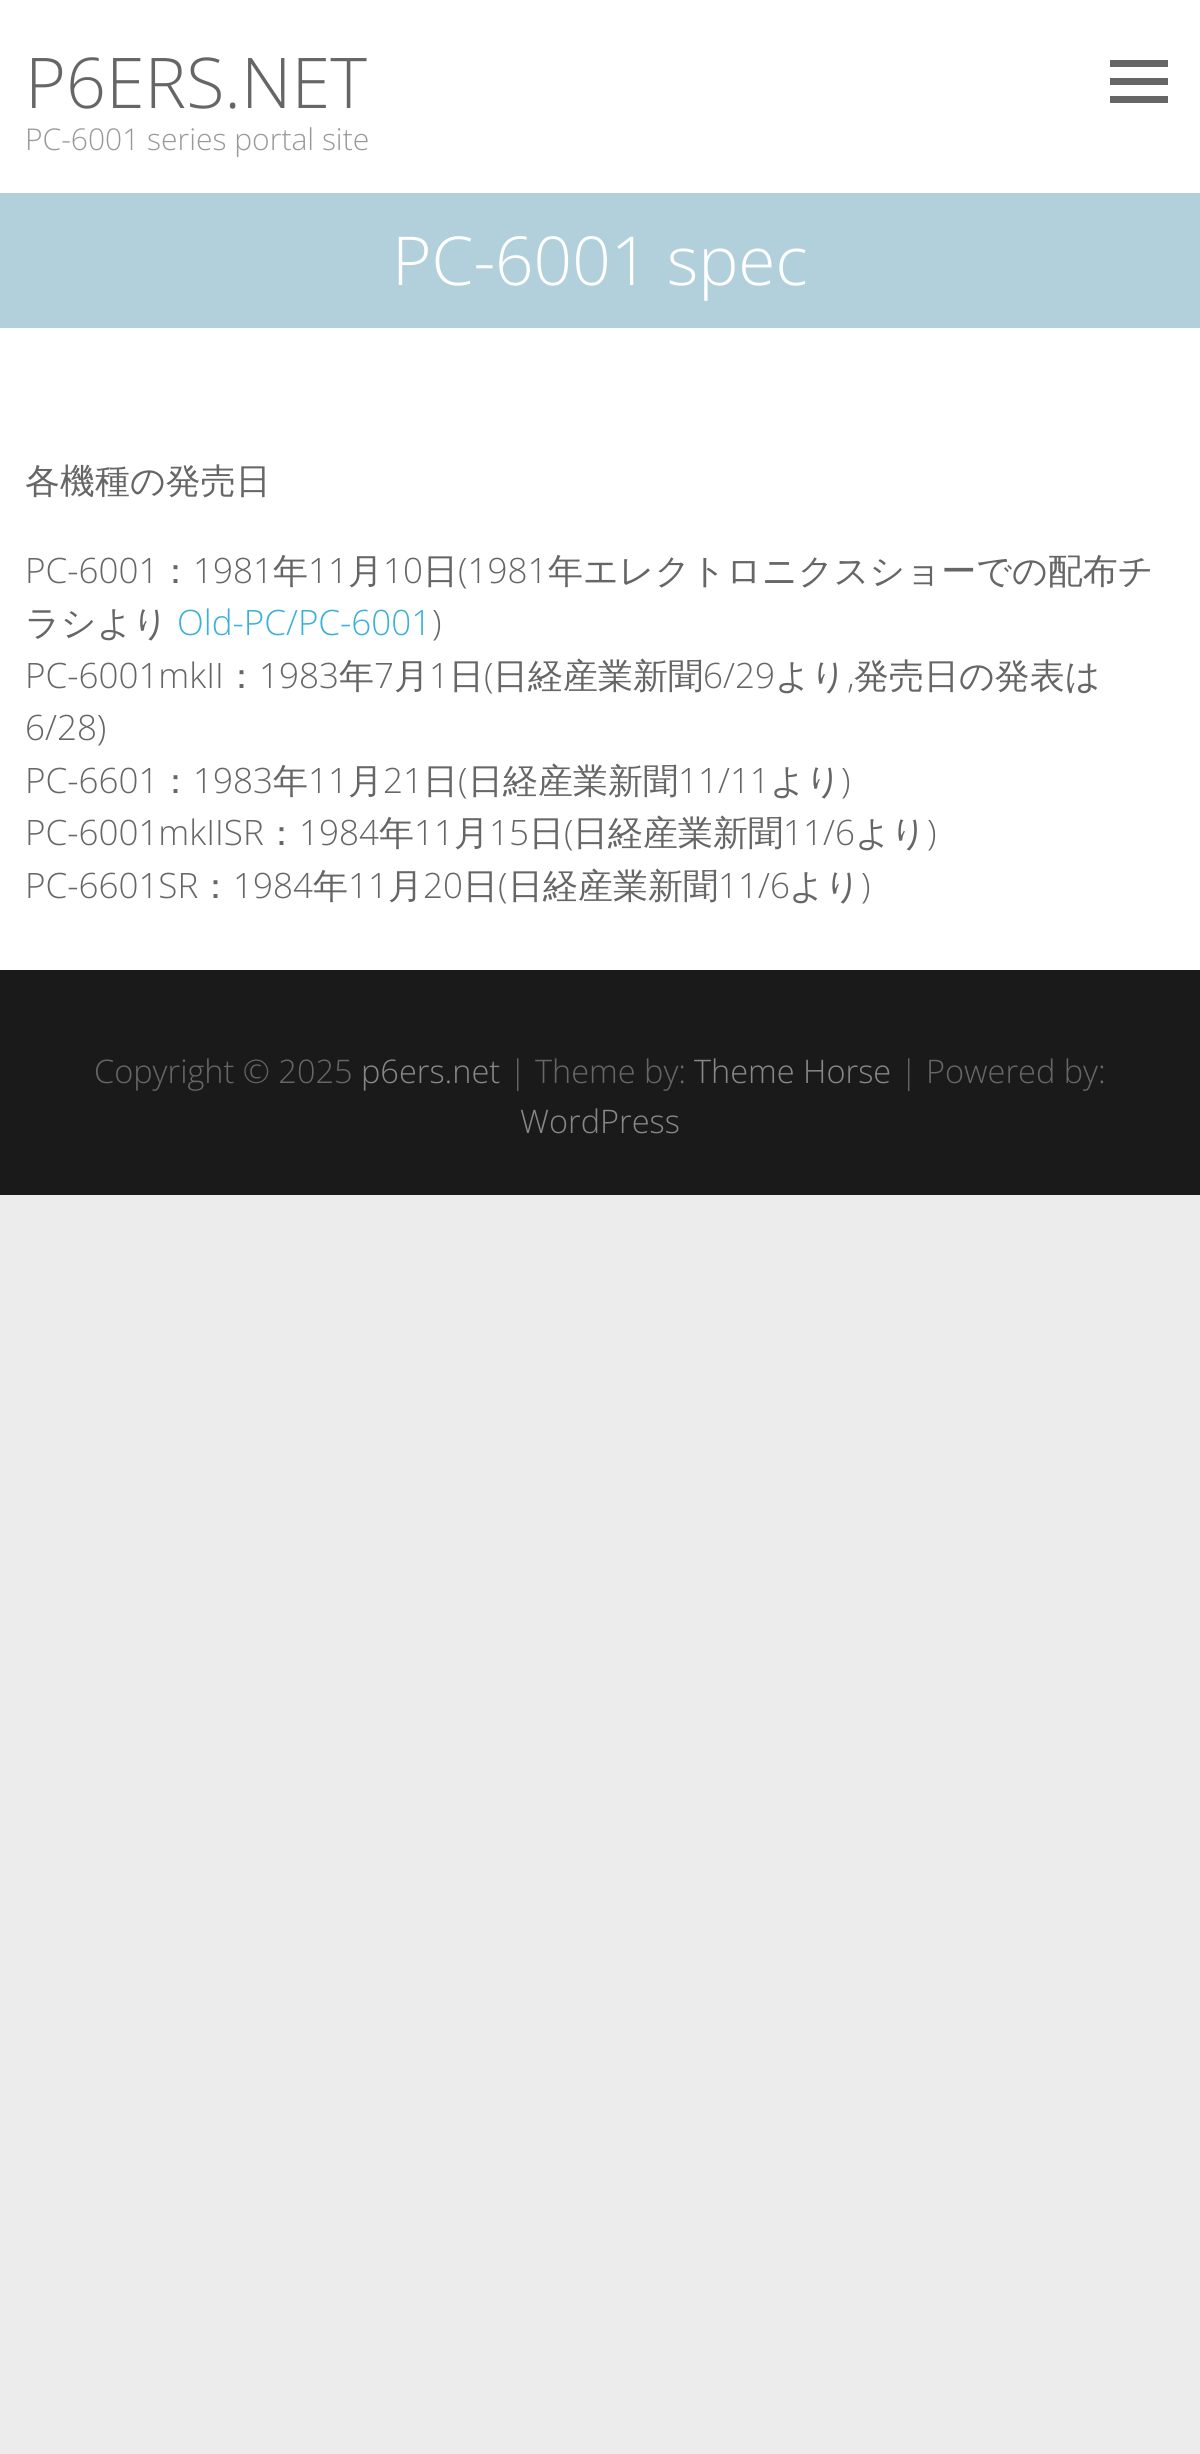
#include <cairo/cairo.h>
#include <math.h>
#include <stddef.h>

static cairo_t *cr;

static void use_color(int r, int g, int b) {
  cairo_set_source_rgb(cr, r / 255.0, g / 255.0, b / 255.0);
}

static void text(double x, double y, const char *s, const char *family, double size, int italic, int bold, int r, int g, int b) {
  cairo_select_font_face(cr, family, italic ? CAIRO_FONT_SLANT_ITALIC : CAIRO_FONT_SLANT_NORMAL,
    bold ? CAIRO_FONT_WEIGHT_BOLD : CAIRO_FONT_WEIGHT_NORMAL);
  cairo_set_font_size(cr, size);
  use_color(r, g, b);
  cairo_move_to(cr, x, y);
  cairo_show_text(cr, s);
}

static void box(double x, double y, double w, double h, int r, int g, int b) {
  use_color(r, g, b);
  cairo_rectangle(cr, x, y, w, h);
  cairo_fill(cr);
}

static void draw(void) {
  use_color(236, 236, 236);
  cairo_paint(cr);
  box(0, 0, 1200, 970, 255, 255, 255);
  use_color(102, 102, 102);
  cairo_new_path(cr);
  cairo_move_to(cr, 1110, 103);
  cairo_line_to(cr, 1110, 96);
  cairo_line_to(cr, 1168, 96);
  cairo_line_to(cr, 1168, 103);
  cairo_close_path(cr);
  cairo_move_to(cr, 1110, 85);
  cairo_line_to(cr, 1110, 78);
  cairo_line_to(cr, 1168, 78);
  cairo_line_to(cr, 1168, 85);
  cairo_close_path(cr);
  cairo_move_to(cr, 1110, 67);
  cairo_line_to(cr, 1110, 60);
  cairo_line_to(cr, 1168, 60);
  cairo_line_to(cr, 1168, 67);
  cairo_close_path(cr);
  cairo_fill(cr);
  box(0, 193, 1200, 135, 177, 208, 220);
  box(0, 970, 1200, 225, 26, 26, 26);
  text(25, 108, "P6ERS.NET", "Open Sans Light", 70, 0, 0, 102, 102, 102);
  text(25, 150, "PC-6001 series portal site", "Open Sans Light", 30, 0, 0, 153, 153, 153);
  text(392, 285, "PC-6001 spec", "Open Sans Light", 67.5, 0, 0, 255, 255, 255);
  text(25, 493, "各機種の発売日", "WenQuanYi Zen Hei Medium", 35, 0, 0, 102, 102, 102);
  text(25, 583, "PC-6001", "Open Sans Light", 35, 0, 0, 102, 102, 102);
  text(158, 583, "：", "WenQuanYi Zen Hei Medium", 35, 0, 0, 102, 102, 102);
  text(193, 583, "1981", "Open Sans Light", 35, 0, 0, 102, 102, 102);
  text(273, 583, "年", "WenQuanYi Zen Hei Medium", 35, 0, 0, 102, 102, 102);
  text(308, 583, "11", "Open Sans Light", 35, 0, 0, 102, 102, 102);
  text(348, 583, "月", "WenQuanYi Zen Hei Medium", 35, 0, 0, 102, 102, 102);
  text(383, 583, "10", "Open Sans Light", 35, 0, 0, 102, 102, 102);
  text(423, 583, "日", "WenQuanYi Zen Hei Medium", 35, 0, 0, 102, 102, 102);
  text(458, 583, "(1981", "Open Sans Light", 35, 0, 0, 102, 102, 102);
  text(548, 583, "年エレクトロニクスショーでの配布チ", "WenQuanYi Zen Hei Medium", 35, 0, 0, 102, 102, 102);
  text(25, 635, "ラシより", "WenQuanYi Zen Hei Medium", 35, 0, 0, 102, 102, 102);
  text(177, 635, "Old-PC/PC-6001", "Open Sans Light", 35, 0, 0, 58, 176, 219);
  text(432, 635, ")", "Open Sans Light", 35, 0, 0, 102, 102, 102);
  text(25, 688, "PC-6001mkII", "Open Sans Light", 35, 0, 0, 102, 102, 102);
  text(224, 688, "：", "WenQuanYi Zen Hei Medium", 35, 0, 0, 102, 102, 102);
  text(259, 688, "1983", "Open Sans Light", 35, 0, 0, 102, 102, 102);
  text(339, 688, "年", "WenQuanYi Zen Hei Medium", 35, 0, 0, 102, 102, 102);
  text(374, 688, "7", "Open Sans Light", 35, 0, 0, 102, 102, 102);
  text(394, 688, "月", "WenQuanYi Zen Hei Medium", 35, 0, 0, 102, 102, 102);
  text(429, 688, "1", "Open Sans Light", 35, 0, 0, 102, 102, 102);
  text(449, 688, "日", "WenQuanYi Zen Hei Medium", 35, 0, 0, 102, 102, 102);
  text(484, 688, "(", "Open Sans Light", 35, 0, 0, 102, 102, 102);
  text(493, 688, "日経産業新聞", "WenQuanYi Zen Hei Medium", 35, 0, 0, 102, 102, 102);
  text(703, 688, "6/29", "Open Sans Light", 35, 0, 0, 102, 102, 102);
  text(775, 688, "より", "WenQuanYi Zen Hei Medium", 35, 0, 0, 102, 102, 102);
  text(847, 688, ",", "Open Sans Light", 35, 0, 0, 102, 102, 102);
  text(854, 688, "発売日の発表は", "WenQuanYi Zen Hei Medium", 35, 0, 0, 102, 102, 102);
  text(25, 740, "6/28)", "Open Sans Light", 35, 0, 0, 102, 102, 102);
  text(25, 793, "PC-6601", "Open Sans Light", 35, 0, 0, 102, 102, 102);
  text(158, 793, "：", "WenQuanYi Zen Hei Medium", 35, 0, 0, 102, 102, 102);
  text(193, 793, "1983", "Open Sans Light", 35, 0, 0, 102, 102, 102);
  text(273, 793, "年", "WenQuanYi Zen Hei Medium", 35, 0, 0, 102, 102, 102);
  text(308, 793, "11", "Open Sans Light", 35, 0, 0, 102, 102, 102);
  text(348, 793, "月", "WenQuanYi Zen Hei Medium", 35, 0, 0, 102, 102, 102);
  text(383, 793, "21", "Open Sans Light", 35, 0, 0, 102, 102, 102);
  text(423, 793, "日", "WenQuanYi Zen Hei Medium", 35, 0, 0, 102, 102, 102);
  text(458, 793, "(", "Open Sans Light", 35, 0, 0, 102, 102, 102);
  text(468, 793, "日経産業新聞", "WenQuanYi Zen Hei Medium", 35, 0, 0, 102, 102, 102);
  text(678, 793, "11/11", "Open Sans Light", 35, 0, 0, 102, 102, 102);
  text(770, 793, "より", "WenQuanYi Zen Hei Medium", 35, 0, 0, 102, 102, 102);
  text(841, 793, ")", "Open Sans Light", 35, 0, 0, 102, 102, 102);
  text(25, 845, "PC-6001mkIISR", "Open Sans Light", 35, 0, 0, 102, 102, 102);
  text(264, 845, "：", "WenQuanYi Zen Hei Medium", 35, 0, 0, 102, 102, 102);
  text(299, 845, "1984", "Open Sans Light", 35, 0, 0, 102, 102, 102);
  text(379, 845, "年", "WenQuanYi Zen Hei Medium", 35, 0, 0, 102, 102, 102);
  text(414, 845, "11", "Open Sans Light", 35, 0, 0, 102, 102, 102);
  text(454, 845, "月", "WenQuanYi Zen Hei Medium", 35, 0, 0, 102, 102, 102);
  text(489, 845, "15", "Open Sans Light", 35, 0, 0, 102, 102, 102);
  text(529, 845, "日", "WenQuanYi Zen Hei Medium", 35, 0, 0, 102, 102, 102);
  text(564, 845, "(", "Open Sans Light", 35, 0, 0, 102, 102, 102);
  text(573, 845, "日経産業新聞", "WenQuanYi Zen Hei Medium", 35, 0, 0, 102, 102, 102);
  text(783, 845, "11/6", "Open Sans Light", 35, 0, 0, 102, 102, 102);
  text(855, 845, "より", "WenQuanYi Zen Hei Medium", 35, 0, 0, 102, 102, 102);
  text(927, 845, ")", "Open Sans Light", 35, 0, 0, 102, 102, 102);
  text(25, 898, "PC-6601SR", "Open Sans Light", 35, 0, 0, 102, 102, 102);
  text(198, 898, "：", "WenQuanYi Zen Hei Medium", 35, 0, 0, 102, 102, 102);
  text(233, 898, "1984", "Open Sans Light", 35, 0, 0, 102, 102, 102);
  text(313, 898, "年", "WenQuanYi Zen Hei Medium", 35, 0, 0, 102, 102, 102);
  text(348, 898, "11", "Open Sans Light", 35, 0, 0, 102, 102, 102);
  text(388, 898, "月", "WenQuanYi Zen Hei Medium", 35, 0, 0, 102, 102, 102);
  text(423, 898, "20", "Open Sans Light", 35, 0, 0, 102, 102, 102);
  text(463, 898, "日", "WenQuanYi Zen Hei Medium", 35, 0, 0, 102, 102, 102);
  text(498, 898, "(", "Open Sans Light", 35, 0, 0, 102, 102, 102);
  text(508, 898, "日経産業新聞", "WenQuanYi Zen Hei Medium", 35, 0, 0, 102, 102, 102);
  text(718, 898, "11/6", "Open Sans Light", 35, 0, 0, 102, 102, 102);
  text(789, 898, "より", "WenQuanYi Zen Hei Medium", 35, 0, 0, 102, 102, 102);
  text(861, 898, ")", "Open Sans Light", 35, 0, 0, 102, 102, 102);
  text(94, 1083, "Copyright © 2025", "Open Sans Light", 32.5, 0, 0, 102, 102, 102);
  text(361, 1083, "p6ers.net", "Open Sans Light", 32.5, 0, 0, 136, 136, 136);
  text(509, 1083, "| Theme by:", "Open Sans Light", 32.5, 0, 0, 102, 102, 102);
  text(694, 1083, "Theme Horse", "Open Sans Light", 32.5, 0, 0, 136, 136, 136);
  text(900, 1083, "| Powered by:", "Open Sans Light", 32.5, 0, 0, 102, 102, 102);
  text(520, 1133, "WordPress", "Open Sans Light", 32.5, 0, 0, 136, 136, 136);
}

int main(void) {
  cairo_surface_t *surface = cairo_image_surface_create(CAIRO_FORMAT_RGB24, 1200, 2454);
  cr = cairo_create(surface);
  cairo_font_options_t *options = cairo_font_options_create();
  cairo_font_options_set_hint_metrics(options, CAIRO_HINT_METRICS_OFF);
  cairo_font_options_set_hint_style(options, CAIRO_HINT_STYLE_NONE);
  cairo_set_font_options(cr, options);
  cairo_set_miter_limit(cr, 4);
  draw();
  cairo_surface_write_to_png(surface, "out.png");
  cairo_font_options_destroy(options);
  cairo_destroy(cr);
  cairo_surface_destroy(surface);
  return 0;
}
